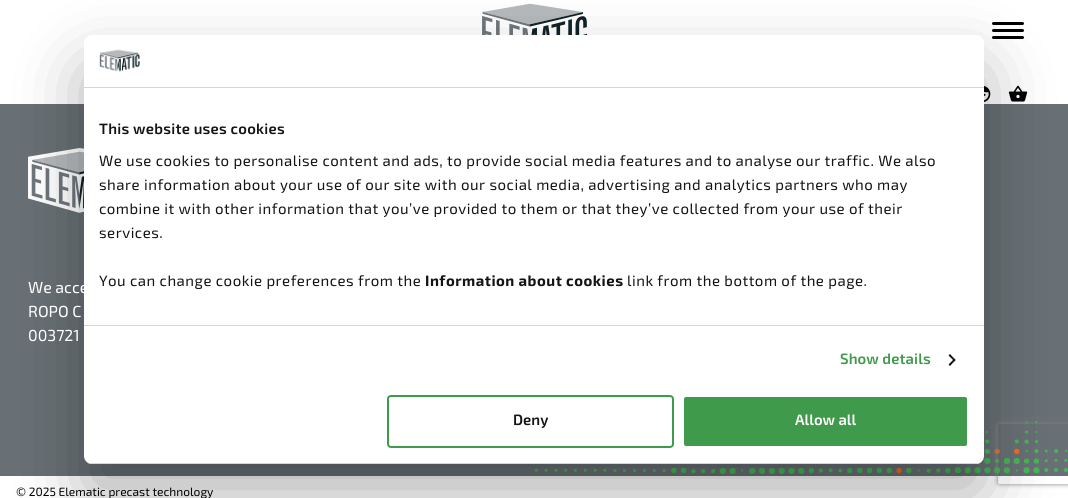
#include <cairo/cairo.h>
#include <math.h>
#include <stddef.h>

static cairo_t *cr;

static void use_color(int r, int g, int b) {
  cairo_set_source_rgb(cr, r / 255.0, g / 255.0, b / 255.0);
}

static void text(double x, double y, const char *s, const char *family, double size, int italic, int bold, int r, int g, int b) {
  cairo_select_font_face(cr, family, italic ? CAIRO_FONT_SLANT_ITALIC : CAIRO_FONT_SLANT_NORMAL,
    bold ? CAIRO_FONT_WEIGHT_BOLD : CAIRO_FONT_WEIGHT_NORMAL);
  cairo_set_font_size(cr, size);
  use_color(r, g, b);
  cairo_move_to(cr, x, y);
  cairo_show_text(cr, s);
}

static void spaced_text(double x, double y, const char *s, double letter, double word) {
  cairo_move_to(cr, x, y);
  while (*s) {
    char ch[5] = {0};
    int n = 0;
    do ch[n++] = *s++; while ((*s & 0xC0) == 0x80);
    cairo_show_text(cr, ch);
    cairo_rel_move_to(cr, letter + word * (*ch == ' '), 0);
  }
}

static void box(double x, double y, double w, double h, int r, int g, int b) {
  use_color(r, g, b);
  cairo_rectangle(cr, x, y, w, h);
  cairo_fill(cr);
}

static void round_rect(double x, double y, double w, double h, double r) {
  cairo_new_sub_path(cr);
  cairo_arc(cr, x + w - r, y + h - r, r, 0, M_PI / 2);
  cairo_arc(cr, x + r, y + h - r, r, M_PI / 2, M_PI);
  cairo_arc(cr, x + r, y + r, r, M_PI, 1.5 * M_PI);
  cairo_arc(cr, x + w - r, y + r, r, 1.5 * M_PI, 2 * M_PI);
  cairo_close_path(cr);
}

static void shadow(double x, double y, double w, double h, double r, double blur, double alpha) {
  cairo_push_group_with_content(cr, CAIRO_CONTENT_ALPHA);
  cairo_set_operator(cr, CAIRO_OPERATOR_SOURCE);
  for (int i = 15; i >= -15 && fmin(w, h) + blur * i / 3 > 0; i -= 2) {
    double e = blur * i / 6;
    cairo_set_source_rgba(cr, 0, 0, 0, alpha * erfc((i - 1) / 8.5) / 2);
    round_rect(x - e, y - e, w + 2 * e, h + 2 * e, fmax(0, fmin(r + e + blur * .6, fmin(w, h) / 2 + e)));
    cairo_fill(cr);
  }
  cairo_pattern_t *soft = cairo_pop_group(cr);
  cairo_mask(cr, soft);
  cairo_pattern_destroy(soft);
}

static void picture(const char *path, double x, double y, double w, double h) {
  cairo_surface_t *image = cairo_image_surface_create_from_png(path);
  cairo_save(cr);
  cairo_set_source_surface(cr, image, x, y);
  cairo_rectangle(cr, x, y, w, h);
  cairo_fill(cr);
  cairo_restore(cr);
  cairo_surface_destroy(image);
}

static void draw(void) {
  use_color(255, 255, 255);
  cairo_paint(cr);
  picture("img_01.png", 482, 3, 106, 32);
  use_color(0, 0, 0);
  round_rect(992, 29, 32, 3, 1.5);
  cairo_fill(cr);
  round_rect(992, 22, 32, 3, 1.5);
  cairo_fill(cr);
  round_rect(992, 36, 32, 3, 1.5);
  cairo_fill(cr);
  picture("img_02.png", 984, 86, 7, 16);
  picture("img_03.png", 1008, 85, 20, 17);
  box(0, 104, 1068, 372, 104, 112, 117);
  picture("img_05.png", 28, 148, 56, 65);
  picture("img_06.png", 534, 421, 534, 53);
  use_color(0, 0, 0);
  shadow(84, 67, 900, 429, 8, 34, 0.3);
  use_color(255, 255, 255);
  round_rect(84, 35, 900, 429, 8);
  cairo_fill(cr);
  box(84, 87, 900, 1, 214, 214, 214);
  picture("img_04.png", 99, 49, 41, 23);
  box(84, 325, 900, 1, 214, 214, 214);
  use_color(20, 20, 20);
  cairo_new_path(cr);
  cairo_move_to(cr, 950, 354);
  cairo_line_to(cr, 955.5, 360);
  cairo_line_to(cr, 954.5, 361.5);
  cairo_line_to(cr, 948.5, 355.5);
  cairo_close_path(cr);
  cairo_fill(cr);
  cairo_new_path(cr);
  cairo_move_to(cr, 954.5, 358.5);
  cairo_line_to(cr, 955.5, 360);
  cairo_line_to(cr, 950, 366);
  cairo_line_to(cr, 948.5, 364.5);
  cairo_close_path(cr);
  cairo_fill(cr);
  cairo_save(cr);
  round_rect(84, 35, 900, 429, 8);
  cairo_clip(cr);
  box(84, 463, 900, 1, 214, 214, 214);
  cairo_restore(cr);
  round_rect(388, 396, 285, 51, 3);
  use_color(63, 154, 76);
  cairo_stroke(cr);
  round_rect(683, 396, 285, 51, 3);
  cairo_fill_preserve(cr);
  use_color(255, 255, 255);
  cairo_stroke(cr);
  cairo_save(cr);
  cairo_set_fill_rule(cr, CAIRO_FILL_RULE_EVEN_ODD);
  cairo_new_path(cr);
  cairo_move_to(cr, 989, 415);
  cairo_line_to(cr, 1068, 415);
  cairo_line_to(cr, 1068, 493);
  cairo_line_to(cr, 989, 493);
  cairo_close_path(cr);
  cairo_move_to(cr, 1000, 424);
  cairo_line_to(cr, 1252, 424);
  cairo_curve_to(cr, 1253, 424, 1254, 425, 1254, 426);
  cairo_line_to(cr, 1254, 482);
  cairo_curve_to(cr, 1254, 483, 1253, 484, 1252, 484);
  cairo_line_to(cr, 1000, 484);
  cairo_curve_to(cr, 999, 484, 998, 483, 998, 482);
  cairo_line_to(cr, 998, 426);
  cairo_curve_to(cr, 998, 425, 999, 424, 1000, 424);
  cairo_close_path(cr);
  cairo_clip(cr);
  use_color(128, 128, 128);
  shadow(998, 424, 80, 60, 2, 2.5, 1);
  cairo_restore(cr);
  cairo_select_font_face(cr, "Exo 2 SemiBold", CAIRO_FONT_SLANT_NORMAL, CAIRO_FONT_WEIGHT_NORMAL);
  cairo_set_font_size(cr, 15);
  use_color(20, 20, 20);
  spaced_text(99, 134, "This website uses cookies", 0.25, 0);
  cairo_select_font_face(cr, "Exo 2", CAIRO_FONT_SLANT_NORMAL, CAIRO_FONT_WEIGHT_NORMAL);
  spaced_text(99, 166, "We use cookies to personalise content and ads, to provide social media features and to analyse our traffic. We also", 0.5, 0);
  spaced_text(99, 190, "share information about your use of our site with our social media, advertising and analytics partners who may", 0.5, 0);
  spaced_text(99, 214, "combine it with other information that you’ve provided to them or that they’ve collected from your use of their", 0.5, 0);
  spaced_text(99, 238, "services.", 0.5, 0);
  spaced_text(99, 286, "You can change cookie preferences from the", 0.5, 0);
  cairo_select_font_face(cr, "Exo 2", CAIRO_FONT_SLANT_NORMAL, CAIRO_FONT_WEIGHT_BOLD);
  spaced_text(425, 286, "Information about cookies", 0.5, 0);
  cairo_select_font_face(cr, "Exo 2", CAIRO_FONT_SLANT_NORMAL, CAIRO_FONT_WEIGHT_NORMAL);
  spaced_text(627, 286, "link from the bottom of the page.", 0.5, 0);
  cairo_select_font_face(cr, "Exo 2 SemiBold", CAIRO_FONT_SLANT_NORMAL, CAIRO_FONT_WEIGHT_NORMAL);
  use_color(63, 154, 76);
  spaced_text(840, 364, "Show details", 0.1, 0);
  text(513, 425, "Deny", "Exo 2 SemiBold", 15, 0, 0, 20, 20, 20);
  text(795, 425, "Allow all", "Exo 2 SemiBold", 15, 0, 0, 255, 255, 255);
  text(28, 293, "We acce", "Exo 2", 16, 0, 0, 255, 255, 255);
  text(28, 317, "ROPO C", "Exo 2", 16, 0, 0, 255, 255, 255);
  text(28, 341, "003721", "Exo 2", 16, 0, 0, 255, 255, 255);
  text(16, 496, "© 2025 Elematic precast technology", "Exo 2", 12, 0, 0, 0, 0, 0);
}

int main(void) {
  cairo_surface_t *surface = cairo_image_surface_create(CAIRO_FORMAT_RGB24, 1068, 498);
  cr = cairo_create(surface);
  cairo_font_options_t *options = cairo_font_options_create();
  cairo_font_options_set_hint_metrics(options, CAIRO_HINT_METRICS_OFF);
  cairo_font_options_set_hint_style(options, CAIRO_HINT_STYLE_NONE);
  cairo_set_font_options(cr, options);
  cairo_set_miter_limit(cr, 4);
  draw();
  cairo_surface_write_to_png(surface, "out.png");
  cairo_font_options_destroy(options);
  cairo_destroy(cr);
  cairo_surface_destroy(surface);
  return 0;
}
